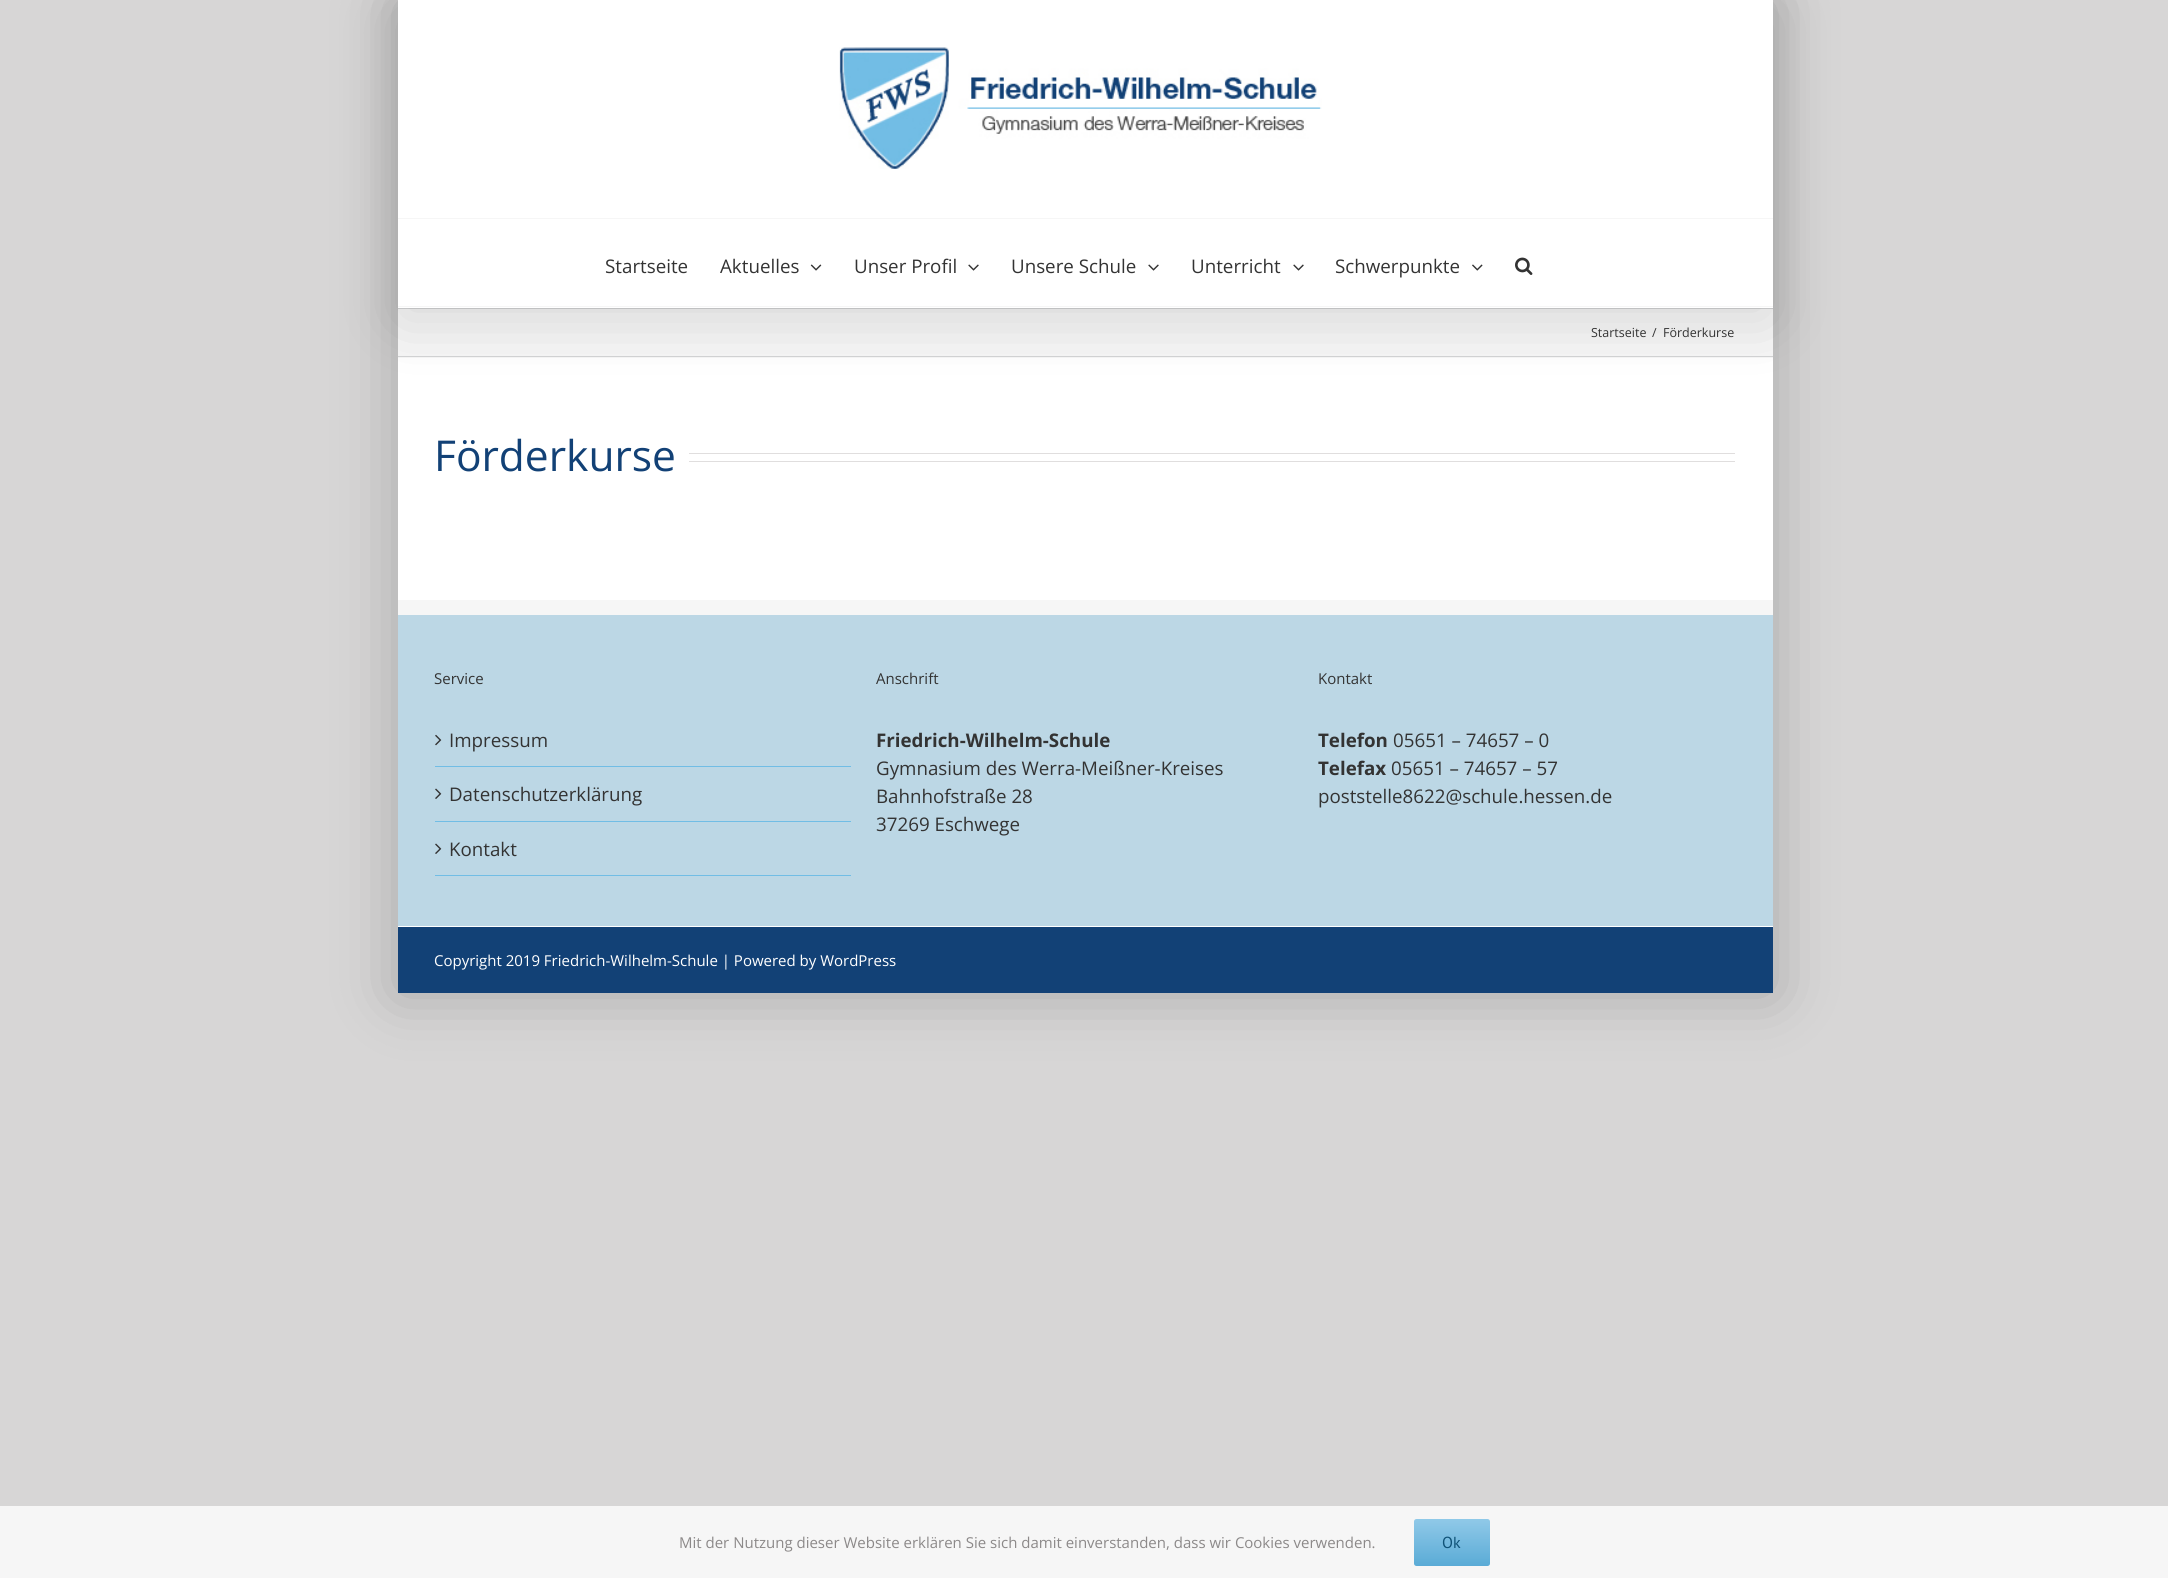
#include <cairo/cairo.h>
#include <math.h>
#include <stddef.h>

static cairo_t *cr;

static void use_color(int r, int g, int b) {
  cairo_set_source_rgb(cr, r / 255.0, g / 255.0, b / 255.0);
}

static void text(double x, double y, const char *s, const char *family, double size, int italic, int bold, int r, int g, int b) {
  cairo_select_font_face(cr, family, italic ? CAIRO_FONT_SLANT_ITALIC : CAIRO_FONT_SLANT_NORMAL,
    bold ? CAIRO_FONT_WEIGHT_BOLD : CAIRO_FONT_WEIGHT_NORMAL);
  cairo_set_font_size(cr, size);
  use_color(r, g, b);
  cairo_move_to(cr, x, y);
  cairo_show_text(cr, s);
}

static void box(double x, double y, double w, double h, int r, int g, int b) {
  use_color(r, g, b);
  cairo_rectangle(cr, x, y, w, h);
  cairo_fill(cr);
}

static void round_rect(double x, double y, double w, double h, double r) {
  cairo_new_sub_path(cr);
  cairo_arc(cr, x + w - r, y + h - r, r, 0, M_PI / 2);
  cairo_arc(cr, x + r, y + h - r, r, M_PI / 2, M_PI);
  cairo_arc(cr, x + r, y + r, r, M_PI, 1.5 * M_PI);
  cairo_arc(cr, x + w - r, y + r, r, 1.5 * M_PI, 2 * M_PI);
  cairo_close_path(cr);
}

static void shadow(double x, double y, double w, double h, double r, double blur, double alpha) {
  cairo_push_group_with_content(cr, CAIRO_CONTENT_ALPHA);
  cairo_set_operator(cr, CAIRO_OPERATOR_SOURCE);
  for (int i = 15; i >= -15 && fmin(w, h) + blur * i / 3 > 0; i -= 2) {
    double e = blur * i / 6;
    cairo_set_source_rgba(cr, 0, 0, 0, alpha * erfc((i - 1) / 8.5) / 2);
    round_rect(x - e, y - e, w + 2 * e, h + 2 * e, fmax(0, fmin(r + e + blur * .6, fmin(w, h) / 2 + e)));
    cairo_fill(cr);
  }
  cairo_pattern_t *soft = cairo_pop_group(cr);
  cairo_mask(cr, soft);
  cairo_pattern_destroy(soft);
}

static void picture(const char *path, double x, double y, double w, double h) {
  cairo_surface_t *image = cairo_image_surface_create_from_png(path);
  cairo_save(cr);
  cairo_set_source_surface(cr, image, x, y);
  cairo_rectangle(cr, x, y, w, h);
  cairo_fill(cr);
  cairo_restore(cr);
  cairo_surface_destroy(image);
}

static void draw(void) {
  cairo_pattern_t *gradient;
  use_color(215, 214, 214);
  cairo_paint(cr);
  use_color(0, 0, 0);
  shadow(396, -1, 1378, 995, 0, 31, 0.22);
  box(398, 309, 1375, 49, 246, 246, 246);
  box(398, 308, 1375, 1, 210, 211, 212);
  box(398, 356, 1375, 1, 210, 211, 212);
  box(398, 358, 1375, 242, 255, 255, 255);
  use_color(0, 0, 0);
  shadow(400, 15, 1370, 303, 0, 31, 0.14);
  box(398, 0, 1375, 218, 255, 255, 255);
  box(398, 218, 1375, 1, 246, 246, 246);
  picture("img_01.png", 839, 47, 483, 122);
  box(398, 219, 1375, 89, 255, 255, 255);
  box(398, 306, 1375, 1, 246, 246, 246);
  picture("img_02.png", 810, 264, 12, 7);
  picture("img_03.png", 968, 264, 11, 7);
  picture("img_03.png", 1148, 264, 11, 7);
  picture("img_03.png", 1293, 264, 11, 7);
  picture("img_04.png", 1472, 264, 11, 7);
  picture("img_05.png", 1515, 257, 18, 18);
  box(689, 453, 1046, 1, 224, 222, 222);
  box(689, 461, 1046, 1, 224, 222, 222);
  box(398, 615, 1375, 311, 188, 215, 229);
  box(398, 600, 1375, 15, 246, 246, 246);
  box(435, 766, 416, 1, 113, 189, 229);
  picture("img_06.png", 435, 734, 7, 12);
  box(435, 821, 416, 1, 113, 189, 229);
  picture("img_07.png", 435, 788, 7, 11);
  box(435, 875, 416, 1, 113, 189, 229);
  picture("img_07.png", 435, 843, 7, 11);
  box(398, 927, 1375, 66, 18, 65, 118);
  box(398, 926, 1375, 1, 255, 255, 255);
  box(0, 1506, 2168, 72, 246, 246, 246);
  gradient = cairo_pattern_create_linear(1452, 1519, 1452, 1566);
  cairo_pattern_add_color_stop_rgba(gradient, 0, 0.565, 0.788, 0.91, 1);
  cairo_pattern_add_color_stop_rgba(gradient, 1, 0.353, 0.671, 0.839, 1);
  cairo_set_source(cr, gradient);
  cairo_pattern_destroy(gradient);
  round_rect(1414, 1519, 76, 47, 2.5);
  cairo_fill(cr);
  text(605, 273, "Startseite", "Open Sans", 18.75, 0, 0, 51, 51, 51);
  text(720, 273, "Aktuelles", "Open Sans", 18.75, 0, 0, 51, 51, 51);
  text(854, 273, "Unser Profil", "Open Sans", 18.75, 0, 0, 51, 51, 51);
  text(1011, 273, "Unsere Schule", "Open Sans", 18.75, 0, 0, 51, 51, 51);
  text(1191, 273, "Unterricht", "Open Sans", 18.75, 0, 0, 51, 51, 51);
  text(1335, 273, "Schwerpunkte", "Open Sans", 18.75, 0, 0, 51, 51, 51);
  text(1591, 337, "Startseite", "Open Sans", 12.5, 0, 0, 51, 51, 51);
  text(1652, 337, "/", "Open Sans", 12.5, 0, 0, 51, 51, 51);
  text(1663, 337, "Förderkurse", "Open Sans", 12.5, 0, 0, 51, 51, 51);
  text(434, 471, "Förderkurse", "Open Sans", 42.5, 0, 0, 18, 65, 118);
  text(434, 684, "Service", "Open Sans", 15, 0, 0, 51, 51, 51);
  text(449, 747, "Impressum", "Open Sans", 18.75, 0, 0, 51, 51, 51);
  text(449, 801, "Datenschutzerklärung", "Open Sans", 18.75, 0, 0, 51, 51, 51);
  text(449, 856, "Kontakt", "Open Sans", 18.75, 0, 0, 51, 51, 51);
  text(876, 684, "Anschrift", "Open Sans", 15, 0, 0, 51, 51, 51);
  text(876, 747, "Friedrich-Wilhelm-Schule", "Open Sans", 18.75, 0, 1, 51, 51, 51);
  text(876, 775, "Gymnasium des Werra-Meißner-Kreises", "Open Sans", 18.75, 0, 0, 51, 51, 51);
  text(876, 803, "Bahnhofstraße 28", "Open Sans", 18.75, 0, 0, 51, 51, 51);
  text(876, 831, "37269 Eschwege", "Open Sans", 18.75, 0, 0, 51, 51, 51);
  text(1318, 684, "Kontakt", "Open Sans", 15, 0, 0, 51, 51, 51);
  text(1318, 747, "Telefon", "Open Sans", 18.75, 0, 1, 51, 51, 51);
  text(1393, 747, "05651 – 74657 – 0", "Open Sans", 18.75, 0, 0, 51, 51, 51);
  text(1318, 775, "Telefax", "Open Sans", 18.75, 0, 1, 51, 51, 51);
  text(1391, 775, "05651 – 74657 – 57", "Open Sans", 18.75, 0, 0, 51, 51, 51);
  text(1318, 803, "poststelle8622@schule.hessen.de", "Open Sans", 18.75, 0, 0, 51, 51, 51);
  text(434, 966, "Copyright 2019 Friedrich-Wilhelm-Schule | Powered by WordPress", "Open Sans", 15, 0, 0, 255, 255, 255);
  text(679, 1548, "Mit der Nutzung dieser Website erklären Sie sich damit einverstanden, dass wir Cookies verwenden.", "Open Sans", 15, 0, 0, 140, 137, 137);
  text(1442, 1548, "Ok", "PT Sans", 16, 0, 0, 16, 83, 120);
}

int main(void) {
  cairo_surface_t *surface = cairo_image_surface_create(CAIRO_FORMAT_RGB24, 2168, 1578);
  cr = cairo_create(surface);
  cairo_font_options_t *options = cairo_font_options_create();
  cairo_font_options_set_hint_metrics(options, CAIRO_HINT_METRICS_OFF);
  cairo_font_options_set_hint_style(options, CAIRO_HINT_STYLE_NONE);
  cairo_set_font_options(cr, options);
  cairo_set_miter_limit(cr, 4);
  draw();
  cairo_surface_write_to_png(surface, "out.png");
  cairo_font_options_destroy(options);
  cairo_destroy(cr);
  cairo_surface_destroy(surface);
  return 0;
}
